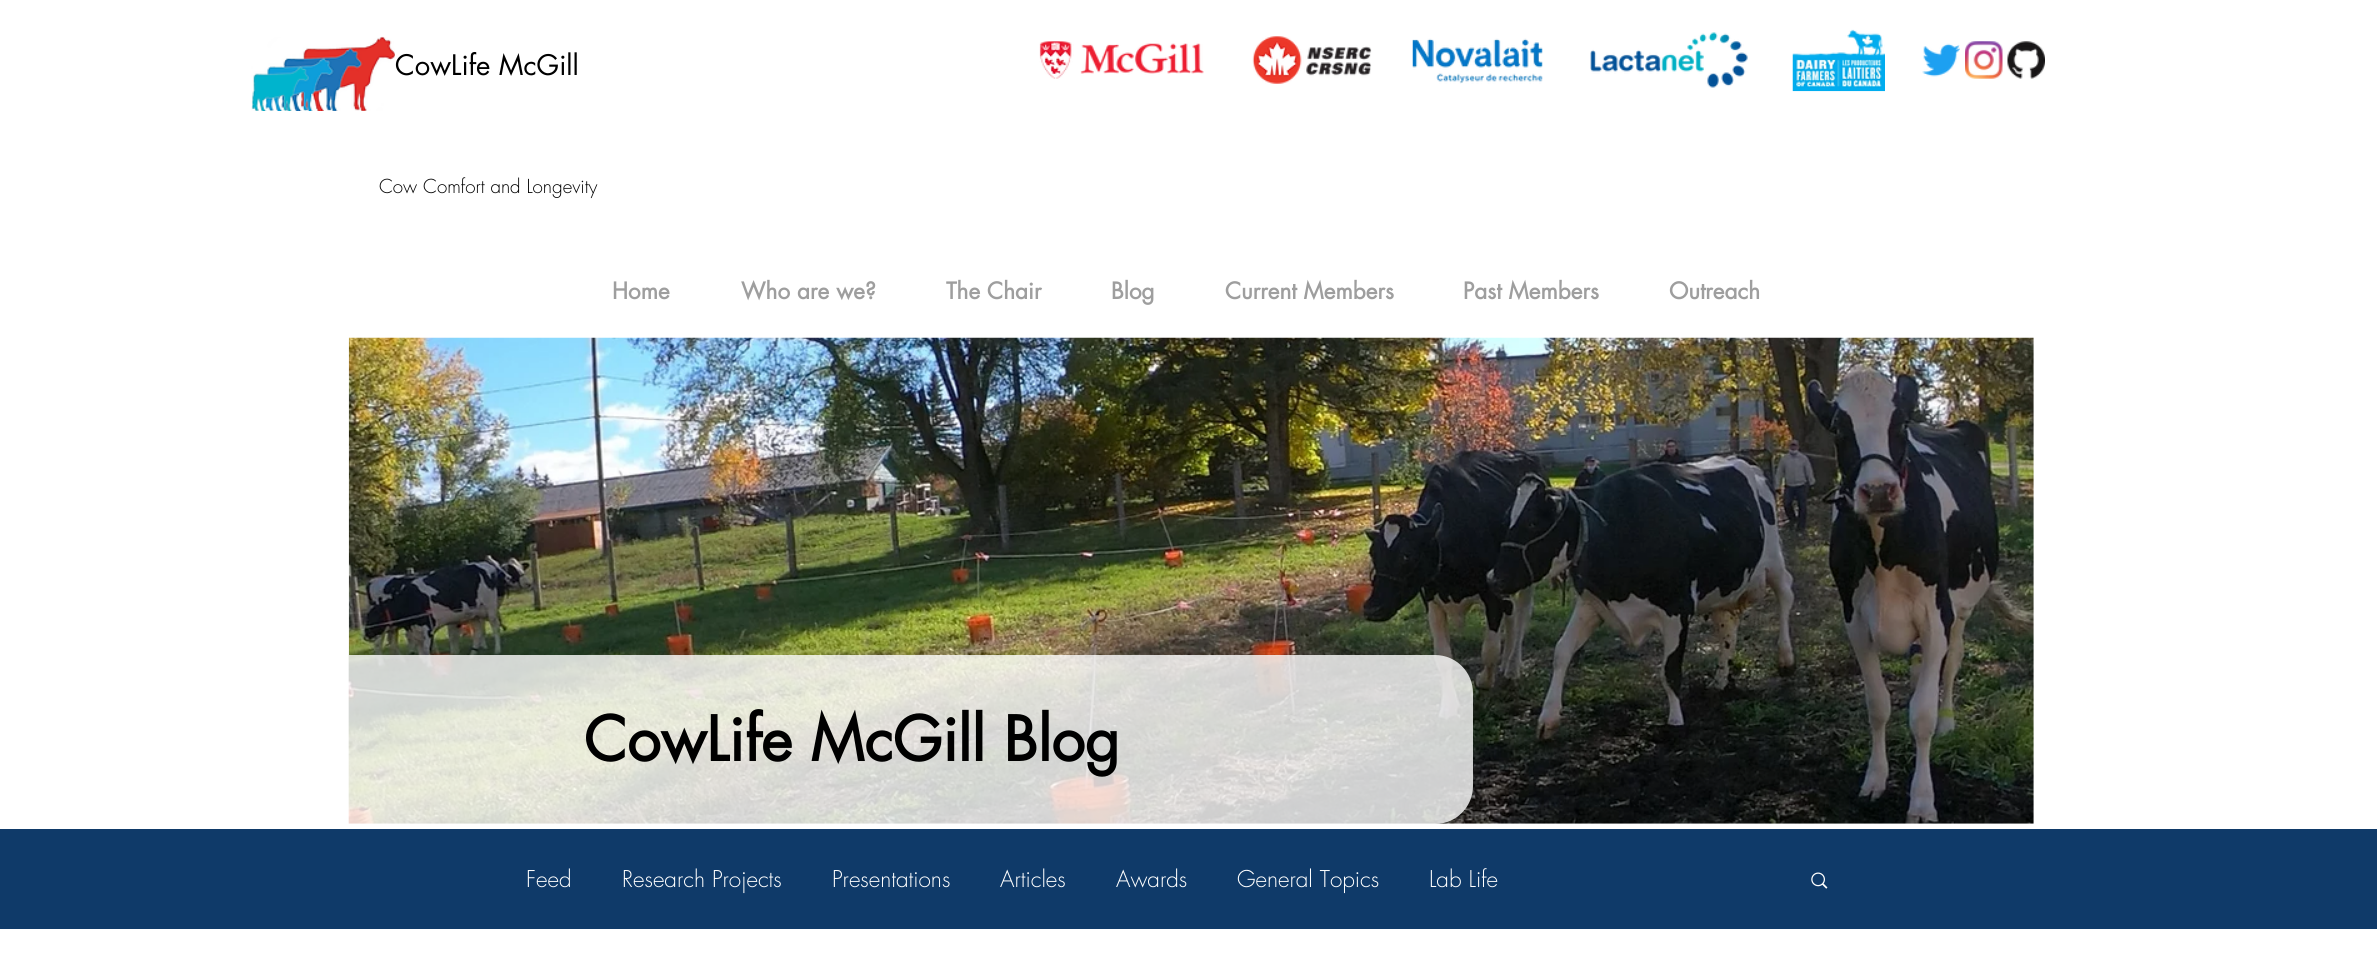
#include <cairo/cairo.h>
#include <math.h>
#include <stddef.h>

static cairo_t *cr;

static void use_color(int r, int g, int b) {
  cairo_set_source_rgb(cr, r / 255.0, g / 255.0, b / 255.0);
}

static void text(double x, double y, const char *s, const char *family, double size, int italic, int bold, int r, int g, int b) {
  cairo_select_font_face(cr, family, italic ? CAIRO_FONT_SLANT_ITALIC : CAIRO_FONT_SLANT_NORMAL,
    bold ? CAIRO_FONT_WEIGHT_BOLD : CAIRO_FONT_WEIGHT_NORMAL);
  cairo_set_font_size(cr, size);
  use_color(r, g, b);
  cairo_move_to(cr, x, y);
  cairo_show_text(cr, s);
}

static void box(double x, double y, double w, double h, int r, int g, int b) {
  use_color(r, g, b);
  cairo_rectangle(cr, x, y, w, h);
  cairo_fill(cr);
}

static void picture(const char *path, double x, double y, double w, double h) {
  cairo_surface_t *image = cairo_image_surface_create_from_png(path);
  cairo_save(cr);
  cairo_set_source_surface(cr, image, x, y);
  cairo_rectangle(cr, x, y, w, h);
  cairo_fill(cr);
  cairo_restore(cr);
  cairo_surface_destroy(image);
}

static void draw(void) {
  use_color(255, 255, 255);
  cairo_paint(cr);
  picture("img_01.png", 251, 36, 144, 75);
  picture("img_02.png", 1039, 41, 165, 38);
  picture("img_03.png", 1252, 36, 120, 48);
  picture("img_04.png", 1412, 38, 131, 46);
  picture("img_05.png", 1590, 32, 158, 56);
  picture("img_06.png", 1792, 29, 93, 63);
  picture("img_07.png", 1922, 43, 38, 34);
  picture("img_08.png", 1965, 41, 38, 38);
  picture("img_09.png", 2007, 41, 38, 38);
  picture("img_10.png", 348, 337, 1686, 487);
  cairo_set_source_rgba(cr, 1, 1, 1, 0.8);
  cairo_new_path(cr);
  cairo_move_to(cr, 349, 655);
  cairo_line_to(cr, 1435, 655);
  cairo_curve_to(cr, 1456, 655, 1473, 672, 1473, 693);
  cairo_line_to(cr, 1473, 786);
  cairo_curve_to(cr, 1473, 807, 1456, 824, 1435, 824);
  cairo_line_to(cr, 349, 824);
  cairo_close_path(cr);
  cairo_fill(cr);
  box(0, 829, 2377, 100, 15, 58, 105);
  picture("img_11.png", 1811, 872, 17, 17);
  text(395, 75, "CowLife McGill", "futura", 27.5, 0, 0, 0, 0, 0);
  text(379, 193, "Cow Comfort and Longevity", "futura Light", 18.75, 0, 0, 0, 0, 0);
  text(612, 299, "Home", "futura", 22.5, 0, 1, 158, 158, 158);
  text(741, 299, "Who are we?", "futura", 22.5, 0, 1, 158, 158, 158);
  text(946, 299, "The Chair", "futura", 22.5, 0, 1, 158, 158, 158);
  text(1111, 299, "Blog", "futura", 22.5, 0, 1, 158, 158, 158);
  text(1225, 299, "Current Members", "futura", 22.5, 0, 1, 158, 158, 158);
  text(1463, 299, "Past Members", "futura", 22.5, 0, 1, 158, 158, 158);
  text(1669, 299, "Outreach", "futura", 22.5, 0, 1, 158, 158, 158);
  text(584, 761, "CowLife McGill Blog", "futura", 60, 0, 1, 0, 0, 0);
  text(526, 887, "Feed", "futura Light", 22.5, 0, 0, 255, 255, 255);
  text(622, 887, "Research Projects", "futura Light", 22.5, 0, 0, 255, 255, 255);
  text(832, 887, "Presentations", "futura Light", 22.5, 0, 0, 255, 255, 255);
  text(1000, 887, "Articles", "futura Light", 22.5, 0, 0, 255, 255, 255);
  text(1116, 887, "Awards", "futura Light", 22.5, 0, 0, 255, 255, 255);
  text(1237, 887, "General Topics", "futura Light", 22.5, 0, 0, 255, 255, 255);
  text(1429, 887, "Lab Life", "futura Light", 22.5, 0, 0, 255, 255, 255);
}

int main(void) {
  cairo_surface_t *surface = cairo_image_surface_create(CAIRO_FORMAT_RGB24, 2377, 979);
  cr = cairo_create(surface);
  cairo_font_options_t *options = cairo_font_options_create();
  cairo_font_options_set_hint_metrics(options, CAIRO_HINT_METRICS_OFF);
  cairo_font_options_set_hint_style(options, CAIRO_HINT_STYLE_NONE);
  cairo_set_font_options(cr, options);
  cairo_set_miter_limit(cr, 4);
  draw();
  cairo_surface_write_to_png(surface, "out.png");
  cairo_font_options_destroy(options);
  cairo_destroy(cr);
  cairo_surface_destroy(surface);
  return 0;
}
